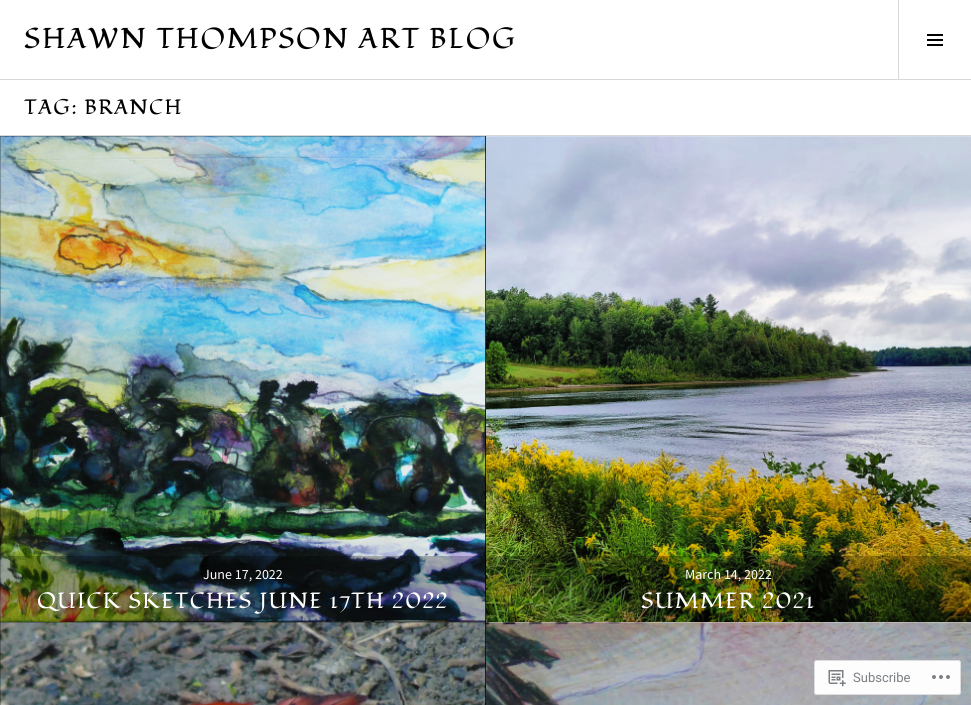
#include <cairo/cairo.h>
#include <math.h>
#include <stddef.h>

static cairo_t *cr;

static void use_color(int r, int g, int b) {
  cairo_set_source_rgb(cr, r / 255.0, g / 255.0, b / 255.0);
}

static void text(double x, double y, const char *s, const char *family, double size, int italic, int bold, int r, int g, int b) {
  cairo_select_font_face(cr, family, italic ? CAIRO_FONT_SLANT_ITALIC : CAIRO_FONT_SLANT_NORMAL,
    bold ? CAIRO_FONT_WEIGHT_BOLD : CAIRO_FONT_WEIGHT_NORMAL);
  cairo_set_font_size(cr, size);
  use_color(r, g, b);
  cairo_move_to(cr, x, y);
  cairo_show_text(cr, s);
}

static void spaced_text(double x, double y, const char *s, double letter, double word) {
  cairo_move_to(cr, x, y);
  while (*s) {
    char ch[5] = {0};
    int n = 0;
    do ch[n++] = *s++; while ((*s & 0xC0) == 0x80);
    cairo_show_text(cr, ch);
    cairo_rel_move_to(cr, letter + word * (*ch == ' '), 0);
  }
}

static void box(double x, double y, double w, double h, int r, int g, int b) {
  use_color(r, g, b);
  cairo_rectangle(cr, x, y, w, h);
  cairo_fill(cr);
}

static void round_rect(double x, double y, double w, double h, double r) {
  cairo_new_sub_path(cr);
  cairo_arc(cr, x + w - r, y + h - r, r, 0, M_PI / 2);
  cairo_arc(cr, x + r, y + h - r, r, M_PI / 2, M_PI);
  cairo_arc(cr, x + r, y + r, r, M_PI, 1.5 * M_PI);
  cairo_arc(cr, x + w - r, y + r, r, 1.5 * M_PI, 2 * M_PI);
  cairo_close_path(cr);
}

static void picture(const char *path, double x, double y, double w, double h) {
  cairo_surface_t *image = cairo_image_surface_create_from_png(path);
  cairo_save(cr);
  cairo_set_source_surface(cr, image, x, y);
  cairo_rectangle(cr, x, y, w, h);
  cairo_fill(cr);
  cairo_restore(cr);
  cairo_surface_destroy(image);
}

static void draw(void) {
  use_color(255, 255, 255);
  cairo_paint(cr);
  box(0, 79, 971, 1, 216, 216, 216);
  box(898, 0, 1, 79, 216, 216, 216);
  picture("img_01.png", 927, 34, 16, 12);
  box(0, 135, 971, 1, 216, 216, 216);
  box(0, 136, 486, 569, 0, 0, 0);
  picture("img_02.png", 0, 136, 486, 486);
  cairo_set_source_rgba(cr, 0, 0, 0, 0.25);
  cairo_rectangle(cr, 0, 556, 486, 66);
  cairo_fill(cr);
  picture("img_03.png", 486, 136, 485, 486);
  cairo_rectangle(cr, 486, 556, 485, 66);
  cairo_fill(cr);
  picture("img_04.png", 0, 622, 486, 83);
  picture("img_05.png", 486, 622, 485, 83);
  cairo_set_source_rgba(cr, 1, 1, 1, 0.98);
  round_rect(814, 660, 147, 35, 3);
  cairo_fill(cr);
  round_rect(814.5, 660.5, 146, 34, 2.5);
  cairo_set_source_rgba(cr, 0.863, 0.863, 0.871, 0.98);
  cairo_set_line_width(cr, 1);
  cairo_stroke(cr);
  picture("img_06.png", 828, 670, 18, 17);
  picture("img_07.png", 932, 675, 18, 4);
  cairo_select_font_face(cr, "Fondamento", CAIRO_FONT_SLANT_NORMAL, CAIRO_FONT_WEIGHT_NORMAL);
  cairo_set_font_size(cr, 28.6);
  use_color(0, 0, 0);
  spaced_text(24, 48, "SHAWN THOMPSON ART BLOG", 1.75, 0);
  cairo_set_font_size(cr, 20.75);
  spaced_text(24, 114, "TAG: BRANCH", 1.25, 0);
  text(203, 579, "June 17, 2022", "Source Sans Pro", 14, 0, 0, 255, 255, 255);
  cairo_select_font_face(cr, "Fondamento", CAIRO_FONT_SLANT_NORMAL, CAIRO_FONT_WEIGHT_NORMAL);
  cairo_set_font_size(cr, 22);
  spaced_text(37, 608, "QUICK SKETCHES JUNE 17TH 2022", 1.4, 0);
  text(685, 579, "March 14, 2022", "Source Sans Pro", 14, 0, 0, 255, 255, 255);
  cairo_select_font_face(cr, "Fondamento", CAIRO_FONT_SLANT_NORMAL, CAIRO_FONT_WEIGHT_NORMAL);
  cairo_set_font_size(cr, 22);
  spaced_text(641, 608, "SUMMER 2021", 1.4, 0);
  text(853, 682, "Subscribe", "Roboto", 13, 0, 0, 123, 127, 132);
}

int main(void) {
  cairo_surface_t *surface = cairo_image_surface_create(CAIRO_FORMAT_RGB24, 971, 705);
  cr = cairo_create(surface);
  cairo_font_options_t *options = cairo_font_options_create();
  cairo_font_options_set_hint_metrics(options, CAIRO_HINT_METRICS_OFF);
  cairo_font_options_set_hint_style(options, CAIRO_HINT_STYLE_NONE);
  cairo_set_font_options(cr, options);
  cairo_set_miter_limit(cr, 4);
  draw();
  cairo_surface_write_to_png(surface, "out.png");
  cairo_font_options_destroy(options);
  cairo_destroy(cr);
  cairo_surface_destroy(surface);
  return 0;
}
